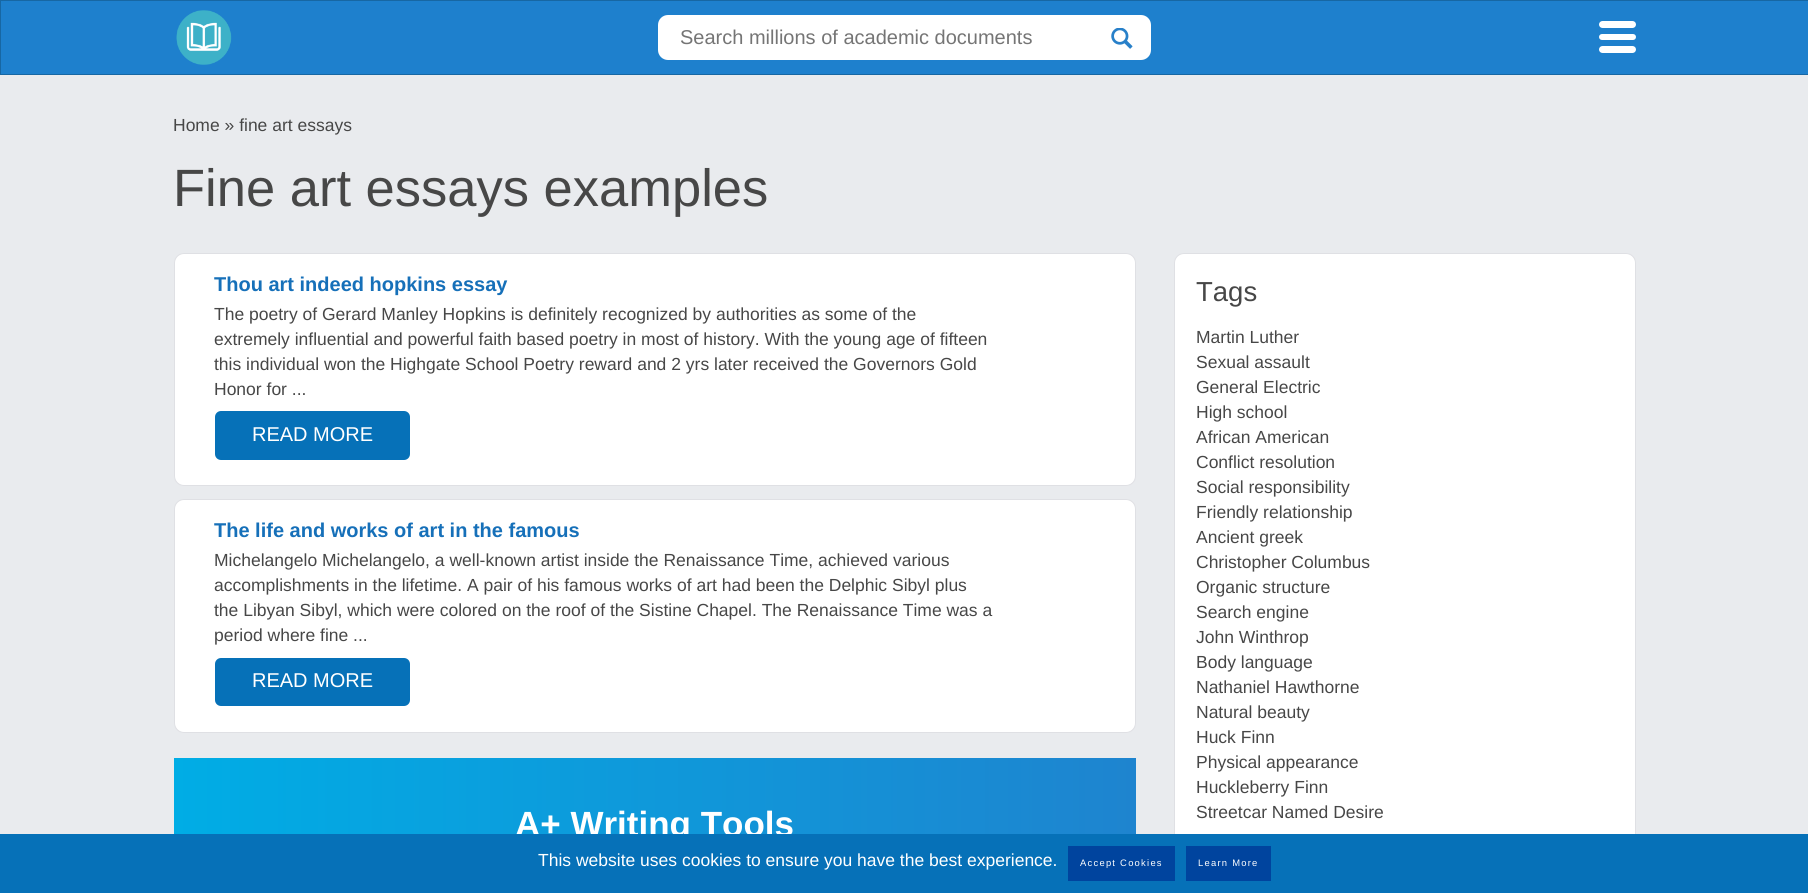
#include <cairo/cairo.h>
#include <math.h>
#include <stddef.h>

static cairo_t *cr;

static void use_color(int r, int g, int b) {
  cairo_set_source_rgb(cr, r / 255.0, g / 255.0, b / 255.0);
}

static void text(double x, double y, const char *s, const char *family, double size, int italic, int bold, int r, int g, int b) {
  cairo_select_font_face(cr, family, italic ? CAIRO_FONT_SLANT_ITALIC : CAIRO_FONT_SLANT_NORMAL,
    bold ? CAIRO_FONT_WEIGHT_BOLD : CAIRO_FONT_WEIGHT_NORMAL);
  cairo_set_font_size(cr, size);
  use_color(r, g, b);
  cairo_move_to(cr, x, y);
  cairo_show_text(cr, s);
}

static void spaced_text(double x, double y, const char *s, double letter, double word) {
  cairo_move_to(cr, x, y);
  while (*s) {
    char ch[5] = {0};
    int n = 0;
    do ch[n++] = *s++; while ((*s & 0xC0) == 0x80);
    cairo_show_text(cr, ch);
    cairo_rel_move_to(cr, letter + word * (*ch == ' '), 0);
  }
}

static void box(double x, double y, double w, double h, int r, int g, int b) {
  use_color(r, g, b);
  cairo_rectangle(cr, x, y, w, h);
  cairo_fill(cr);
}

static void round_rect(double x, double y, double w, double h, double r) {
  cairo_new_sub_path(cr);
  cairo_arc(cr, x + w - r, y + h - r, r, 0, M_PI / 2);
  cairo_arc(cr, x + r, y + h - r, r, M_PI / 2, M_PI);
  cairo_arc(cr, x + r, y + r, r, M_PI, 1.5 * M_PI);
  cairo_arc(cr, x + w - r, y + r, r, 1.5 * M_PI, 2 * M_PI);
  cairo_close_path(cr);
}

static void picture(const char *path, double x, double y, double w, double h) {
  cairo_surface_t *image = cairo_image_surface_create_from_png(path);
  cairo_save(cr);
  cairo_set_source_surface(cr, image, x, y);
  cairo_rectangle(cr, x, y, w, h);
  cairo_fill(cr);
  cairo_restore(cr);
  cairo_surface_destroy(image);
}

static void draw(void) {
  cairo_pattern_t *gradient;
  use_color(233, 235, 238);
  cairo_paint(cr);
  use_color(30, 128, 205);
  cairo_rectangle(cr, 0.5, 0.5, 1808, 74);
  cairo_fill_preserve(cr);
  use_color(23, 103, 163);
  cairo_set_line_width(cr, 1);
  cairo_stroke(cr);
  picture("img_01.png", 176, 10, 56, 55);
  use_color(255, 255, 255);
  round_rect(658, 15, 493, 45, 10);
  cairo_fill(cr);
  picture("img_02.png", 1111, 28, 22, 21);
  round_rect(1599, 34, 37, 6, 3);
  cairo_fill(cr);
  round_rect(1599, 21, 37, 7, 3.5);
  cairo_fill(cr);
  round_rect(1599, 46, 37, 7, 3.5);
  cairo_fill(cr);
  round_rect(174.5, 253.5, 961, 232, 9.5);
  cairo_fill_preserve(cr);
  use_color(223, 224, 228);
  cairo_stroke(cr);
  use_color(6, 113, 184);
  round_rect(215, 411, 195, 49, 6);
  cairo_fill(cr);
  use_color(255, 255, 255);
  round_rect(174.5, 499.5, 961, 233, 9.5);
  cairo_fill_preserve(cr);
  use_color(223, 224, 228);
  cairo_stroke(cr);
  use_color(6, 113, 184);
  round_rect(215, 658, 195, 48, 6);
  cairo_fill(cr);
  gradient = cairo_pattern_create_linear(174, 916, 1136, 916);
  cairo_pattern_add_color_stop_rgba(gradient, 0, 0, 0.678, 0.898, 1);
  cairo_pattern_add_color_stop_rgba(gradient, 1, 0.118, 0.518, 0.812, 1);
  cairo_set_source(cr, gradient);
  cairo_pattern_destroy(gradient);
  cairo_rectangle(cr, 174, 758, 962, 76);
  cairo_fill(cr);
  use_color(255, 255, 255);
  round_rect(1174.5, 253.5, 461, 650, 9.5);
  cairo_fill_preserve(cr);
  use_color(223, 224, 228);
  cairo_stroke(cr);
  text(680, 44, "Search millions of academic documents", "Liberation Sans", 20, 0, 0, 117, 117, 117);
  text(173, 131, "Home » fine art essays", "Liberation Sans", 17.5, 0, 0, 71, 71, 71);
  text(173, 206, "Fine art essays examples", "Liberation Sans", 52.5, 0, 0, 71, 71, 71);
  text(214, 291, "Thou art indeed hopkins essay", "Liberation Sans", 20, 0, 1, 22, 112, 185);
  text(214, 320, "The poetry of Gerard Manley Hopkins is definitely recognized by authorities as some of the", "Liberation Sans", 17.5, 0, 0, 71, 71, 71);
  text(214, 345, "extremely influential and powerful faith based poetry in most of history. With the young age of fifteen", "Liberation Sans", 17.5, 0, 0, 71, 71, 71);
  text(214, 370, "this individual won the Highgate School Poetry reward and 2 yrs later received the Governors Gold", "Liberation Sans", 17.5, 0, 0, 71, 71, 71);
  text(214, 395, "Honor for ...", "Liberation Sans", 17.5, 0, 0, 71, 71, 71);
  text(252, 441, "READ MORE", "Liberation Sans", 20, 0, 0, 255, 255, 255);
  text(214, 537, "The life and works of art in the famous", "Liberation Sans", 20, 0, 1, 22, 112, 185);
  text(214, 566, "Michelangelo Michelangelo, a well-known artist inside the Renaissance Time, achieved various", "Liberation Sans", 17.5, 0, 0, 71, 71, 71);
  text(214, 591, "accomplishments in the lifetime. A pair of his famous works of art had been the Delphic Sibyl plus", "Liberation Sans", 17.5, 0, 0, 71, 71, 71);
  text(214, 616, "the Libyan Sibyl, which were colored on the roof of the Sistine Chapel. The Renaissance Time was a", "Liberation Sans", 17.5, 0, 0, 71, 71, 71);
  text(214, 641, "period where fine ...", "Liberation Sans", 17.5, 0, 0, 71, 71, 71);
  text(252, 687, "READ MORE", "Liberation Sans", 20, 0, 0, 255, 255, 255);
  text(515, 836, "A+ Writing Tools", "Liberation Sans", 35, 0, 1, 255, 255, 255);
  text(1196, 301, "Tags", "Liberation Sans", 27.5, 0, 0, 71, 71, 71);
  text(1196, 343, "Martin Luther", "Liberation Sans", 17.5, 0, 0, 71, 71, 71);
  text(1196, 368, "Sexual assault", "Liberation Sans", 17.5, 0, 0, 71, 71, 71);
  text(1196, 393, "General Electric", "Liberation Sans", 17.5, 0, 0, 71, 71, 71);
  text(1196, 418, "High school", "Liberation Sans", 17.5, 0, 0, 71, 71, 71);
  text(1196, 443, "African American", "Liberation Sans", 17.5, 0, 0, 71, 71, 71);
  text(1196, 468, "Conflict resolution", "Liberation Sans", 17.5, 0, 0, 71, 71, 71);
  text(1196, 493, "Social responsibility", "Liberation Sans", 17.5, 0, 0, 71, 71, 71);
  text(1196, 518, "Friendly relationship", "Liberation Sans", 17.5, 0, 0, 71, 71, 71);
  text(1196, 543, "Ancient greek", "Liberation Sans", 17.5, 0, 0, 71, 71, 71);
  text(1196, 568, "Christopher Columbus", "Liberation Sans", 17.5, 0, 0, 71, 71, 71);
  text(1196, 593, "Organic structure", "Liberation Sans", 17.5, 0, 0, 71, 71, 71);
  text(1196, 618, "Search engine", "Liberation Sans", 17.5, 0, 0, 71, 71, 71);
  text(1196, 643, "John Winthrop", "Liberation Sans", 17.5, 0, 0, 71, 71, 71);
  text(1196, 668, "Body language", "Liberation Sans", 17.5, 0, 0, 71, 71, 71);
  text(1196, 693, "Nathaniel Hawthorne", "Liberation Sans", 17.5, 0, 0, 71, 71, 71);
  text(1196, 718, "Natural beauty", "Liberation Sans", 17.5, 0, 0, 71, 71, 71);
  text(1196, 743, "Huck Finn", "Liberation Sans", 17.5, 0, 0, 71, 71, 71);
  text(1196, 768, "Physical appearance", "Liberation Sans", 17.5, 0, 0, 71, 71, 71);
  text(1196, 793, "Huckleberry Finn", "Liberation Sans", 17.5, 0, 0, 71, 71, 71);
  text(1196, 818, "Streetcar Named Desire", "Liberation Sans", 17.5, 0, 0, 71, 71, 71);
  box(0, 834, 1808, 59, 6, 113, 184);
  text(538, 866, "This website uses cookies to ensure you have the best experience.", "Liberation Sans", 17.5, 0, 0, 255, 255, 255);
  box(1068, 846, 107, 35, 0, 68, 158);
  cairo_set_font_size(cr, 9.4);
  use_color(255, 255, 255);
  spaced_text(1080, 866, "Accept Cookies", 1.25, 0);
  box(1186, 846, 85, 35, 0, 68, 158);
  use_color(255, 255, 255);
  spaced_text(1198, 866, "Learn More", 1.25, 0);
}

int main(void) {
  cairo_surface_t *surface = cairo_image_surface_create(CAIRO_FORMAT_RGB24, 1808, 893);
  cr = cairo_create(surface);
  cairo_font_options_t *options = cairo_font_options_create();
  cairo_font_options_set_hint_metrics(options, CAIRO_HINT_METRICS_OFF);
  cairo_font_options_set_hint_style(options, CAIRO_HINT_STYLE_NONE);
  cairo_set_font_options(cr, options);
  cairo_set_miter_limit(cr, 4);
  draw();
  cairo_surface_write_to_png(surface, "out.png");
  cairo_font_options_destroy(options);
  cairo_destroy(cr);
  cairo_surface_destroy(surface);
  return 0;
}
